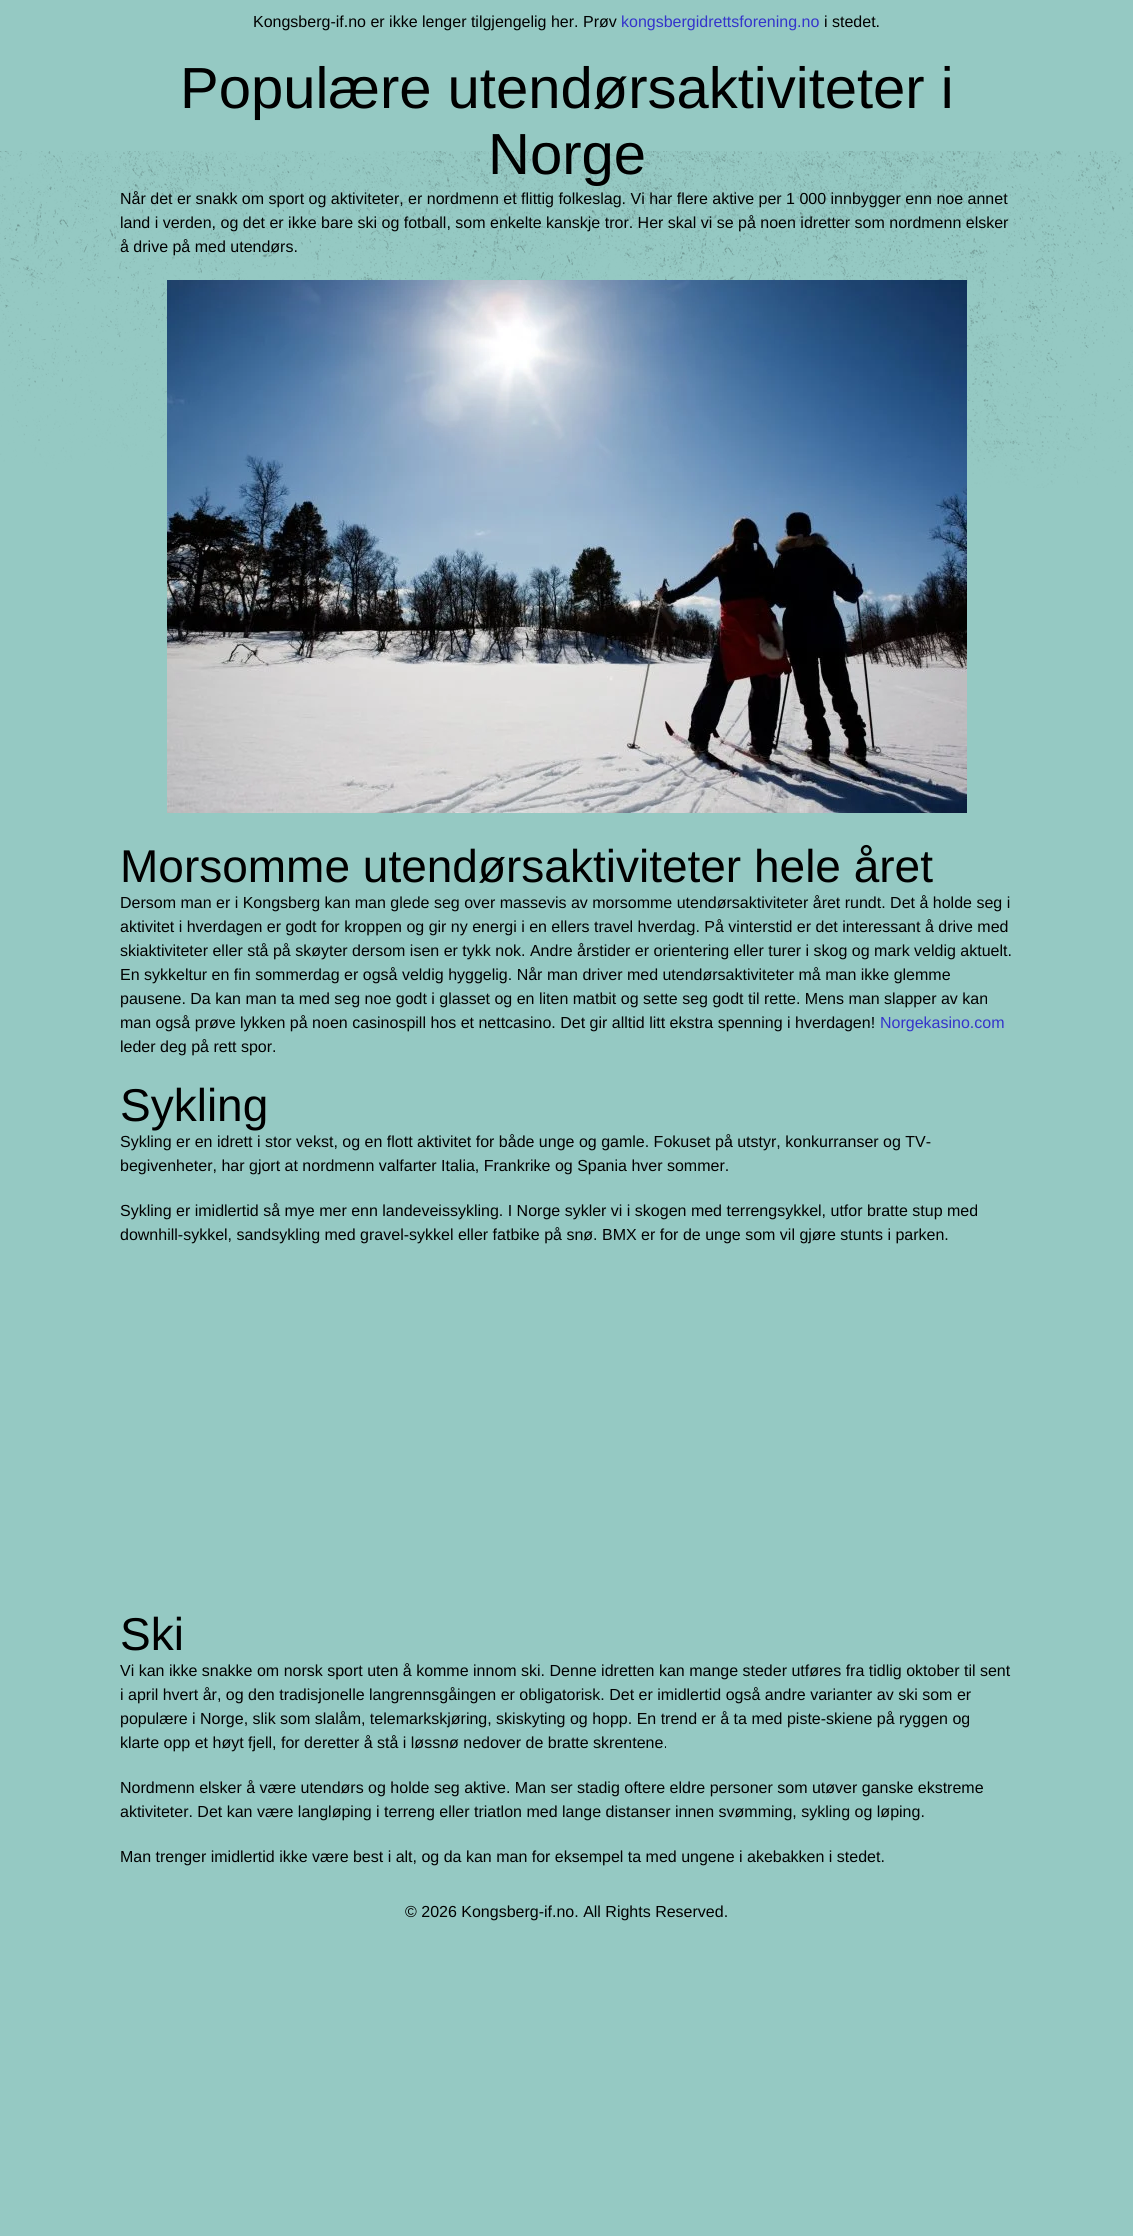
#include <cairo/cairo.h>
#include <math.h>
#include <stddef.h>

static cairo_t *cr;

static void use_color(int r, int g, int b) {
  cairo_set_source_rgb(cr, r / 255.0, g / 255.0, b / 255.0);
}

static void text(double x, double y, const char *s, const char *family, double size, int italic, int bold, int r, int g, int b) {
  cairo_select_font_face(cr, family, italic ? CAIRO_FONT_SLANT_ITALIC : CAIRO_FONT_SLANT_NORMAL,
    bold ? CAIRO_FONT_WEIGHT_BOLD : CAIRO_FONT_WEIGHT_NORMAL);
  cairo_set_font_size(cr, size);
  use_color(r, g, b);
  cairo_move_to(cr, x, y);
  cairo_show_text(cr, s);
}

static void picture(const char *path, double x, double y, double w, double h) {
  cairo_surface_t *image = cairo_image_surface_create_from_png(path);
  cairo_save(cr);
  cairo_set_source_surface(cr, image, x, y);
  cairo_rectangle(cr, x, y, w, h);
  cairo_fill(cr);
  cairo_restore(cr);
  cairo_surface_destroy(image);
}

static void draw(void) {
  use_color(149, 201, 195);
  cairo_paint(cr);
  picture("img_01.png", 0, 151, 1133, 337);
  picture("img_02.png", 167, 280, 800, 533);
  text(253, 27, "Kongsberg-if.no er ikke lenger tilgjengelig her. Prøv", "Liberation Sans", 16, 0, 0, 0, 0, 0);
  text(621, 27, "kongsbergidrettsforening.no", "Liberation Sans", 16, 0, 0, 52, 52, 203);
  text(824, 27, "i stedet.", "Liberation Sans", 16, 0, 0, 0, 0, 0);
  text(180, 108, "Populære utendørsaktiviteter i", "Liberation Sans", 58, 0, 0, 0, 0, 0);
  text(488, 174, "Norge", "Liberation Sans", 58, 0, 0, 0, 0, 0);
  text(120, 204, "Når det er snakk om sport og aktiviteter, er nordmenn et flittig folkeslag. Vi har flere aktive per 1 000 innbygger enn noe annet", "Liberation Sans", 16, 0, 0, 0, 0, 0);
  text(120, 228, "land i verden, og det er ikke bare ski og fotball, som enkelte kanskje tror. Her skal vi se på noen idretter som nordmenn elsker", "Liberation Sans", 16, 0, 0, 0, 0, 0);
  text(120, 252, "å drive på med utendørs.", "Liberation Sans", 16, 0, 0, 0, 0, 0);
  text(120, 882, "Morsomme utendørsaktiviteter hele året", "Liberation Sans", 46, 0, 0, 0, 0, 0);
  text(120, 908, "Dersom man er i Kongsberg kan man glede seg over massevis av morsomme utendørsaktiviteter året rundt. Det å holde seg i", "Liberation Sans", 16, 0, 0, 0, 0, 0);
  text(120, 932, "aktivitet i hverdagen er godt for kroppen og gir ny energi i en ellers travel hverdag. På vinterstid er det interessant å drive med", "Liberation Sans", 16, 0, 0, 0, 0, 0);
  text(120, 956, "skiaktiviteter eller stå på skøyter dersom isen er tykk nok. Andre årstider er orientering eller turer i skog og mark veldig aktuelt.", "Liberation Sans", 16, 0, 0, 0, 0, 0);
  text(120, 980, "En sykkeltur en fin sommerdag er også veldig hyggelig. Når man driver med utendørsaktiviteter må man ikke glemme", "Liberation Sans", 16, 0, 0, 0, 0, 0);
  text(120, 1004, "pausene. Da kan man ta med seg noe godt i glasset og en liten matbit og sette seg godt til rette. Mens man slapper av kan", "Liberation Sans", 16, 0, 0, 0, 0, 0);
  text(120, 1028, "man også prøve lykken på noen casinospill hos et nettcasino. Det gir alltid litt ekstra spenning i hverdagen!", "Liberation Sans", 16, 0, 0, 0, 0, 0);
  text(880, 1028, "Norgekasino.com", "Liberation Sans", 16, 0, 0, 52, 52, 203);
  text(120, 1052, "leder deg på rett spor.", "Liberation Sans", 16, 0, 0, 0, 0, 0);
  text(120, 1121, "Sykling", "Liberation Sans", 46, 0, 0, 0, 0, 0);
  text(120, 1147, "Sykling er en idrett i stor vekst, og en flott aktivitet for både unge og gamle. Fokuset på utstyr, konkurranser og TV-", "Liberation Sans", 16, 0, 0, 0, 0, 0);
  text(120, 1171, "begivenheter, har gjort at nordmenn valfarter Italia, Frankrike og Spania hver sommer.", "Liberation Sans", 16, 0, 0, 0, 0, 0);
  text(120, 1216, "Sykling er imidlertid så mye mer enn landeveissykling. I Norge sykler vi i skogen med terrengsykkel, utfor bratte stup med", "Liberation Sans", 16, 0, 0, 0, 0, 0);
  text(120, 1240, "downhill-sykkel, sandsykling med gravel-sykkel eller fatbike på snø. BMX er for de unge som vil gjøre stunts i parken.", "Liberation Sans", 16, 0, 0, 0, 0, 0);
  text(120, 1650, "Ski", "Liberation Sans", 46, 0, 0, 0, 0, 0);
  text(120, 1676, "Vi kan ikke snakke om norsk sport uten å komme innom ski. Denne idretten kan mange steder utføres fra tidlig oktober til sent", "Liberation Sans", 16, 0, 0, 0, 0, 0);
  text(120, 1700, "i april hvert år, og den tradisjonelle langrennsgåingen er obligatorisk. Det er imidlertid også andre varianter av ski som er", "Liberation Sans", 16, 0, 0, 0, 0, 0);
  text(120, 1724, "populære i Norge, slik som slalåm, telemarkskjøring, skiskyting og hopp. En trend er å ta med piste-skiene på ryggen og", "Liberation Sans", 16, 0, 0, 0, 0, 0);
  text(120, 1748, "klarte opp et høyt fjell, for deretter å stå i løssnø nedover de bratte skrentene.", "Liberation Sans", 16, 0, 0, 0, 0, 0);
  text(120, 1793, "Nordmenn elsker å være utendørs og holde seg aktive. Man ser stadig oftere eldre personer som utøver ganske ekstreme", "Liberation Sans", 16, 0, 0, 0, 0, 0);
  text(120, 1817, "aktiviteter. Det kan være langløping i terreng eller triatlon med lange distanser innen svømming, sykling og løping.", "Liberation Sans", 16, 0, 0, 0, 0, 0);
  text(120, 1862, "Man trenger imidlertid ikke være best i alt, og da kan man for eksempel ta med ungene i akebakken i stedet.", "Liberation Sans", 16, 0, 0, 0, 0, 0);
  text(405, 1917, "© 2026 Kongsberg-if.no. All Rights Reserved.", "Liberation Sans", 16, 0, 0, 0, 0, 0);
}

int main(void) {
  cairo_surface_t *surface = cairo_image_surface_create(CAIRO_FORMAT_RGB24, 1133, 2236);
  cr = cairo_create(surface);
  cairo_font_options_t *options = cairo_font_options_create();
  cairo_font_options_set_hint_metrics(options, CAIRO_HINT_METRICS_OFF);
  cairo_font_options_set_hint_style(options, CAIRO_HINT_STYLE_NONE);
  cairo_set_font_options(cr, options);
  cairo_set_miter_limit(cr, 4);
  draw();
  cairo_surface_write_to_png(surface, "out.png");
  cairo_font_options_destroy(options);
  cairo_destroy(cr);
  cairo_surface_destroy(surface);
  return 0;
}
